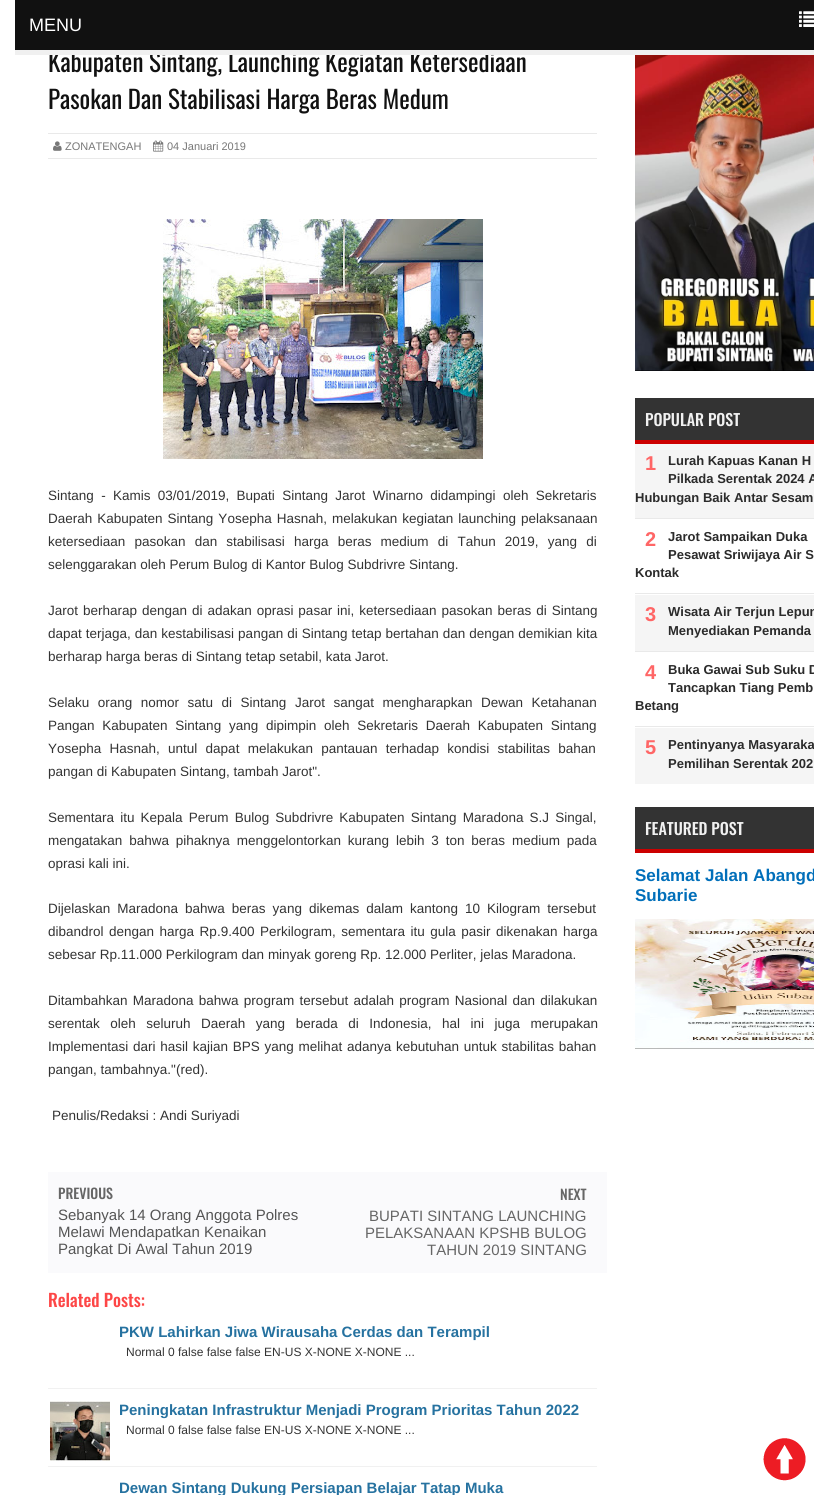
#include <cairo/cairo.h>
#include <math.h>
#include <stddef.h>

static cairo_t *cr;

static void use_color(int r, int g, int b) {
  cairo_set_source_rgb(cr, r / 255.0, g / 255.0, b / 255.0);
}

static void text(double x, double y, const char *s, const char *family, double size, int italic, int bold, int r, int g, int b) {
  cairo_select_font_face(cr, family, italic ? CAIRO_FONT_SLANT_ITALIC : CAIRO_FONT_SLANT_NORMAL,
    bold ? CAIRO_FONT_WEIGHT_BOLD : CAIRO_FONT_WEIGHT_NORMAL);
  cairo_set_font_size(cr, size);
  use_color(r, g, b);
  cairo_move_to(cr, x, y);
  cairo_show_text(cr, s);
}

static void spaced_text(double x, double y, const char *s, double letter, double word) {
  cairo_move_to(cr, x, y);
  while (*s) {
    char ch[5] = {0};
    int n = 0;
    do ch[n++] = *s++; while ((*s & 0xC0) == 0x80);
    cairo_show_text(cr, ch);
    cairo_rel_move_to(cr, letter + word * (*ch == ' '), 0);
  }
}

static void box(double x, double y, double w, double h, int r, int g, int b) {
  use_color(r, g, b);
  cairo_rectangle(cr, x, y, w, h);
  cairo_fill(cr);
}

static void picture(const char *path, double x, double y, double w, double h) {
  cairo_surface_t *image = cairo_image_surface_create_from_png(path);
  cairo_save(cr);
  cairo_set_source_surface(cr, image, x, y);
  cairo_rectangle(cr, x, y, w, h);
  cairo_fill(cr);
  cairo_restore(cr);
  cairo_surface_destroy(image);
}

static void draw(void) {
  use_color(255, 255, 255);
  cairo_paint(cr);
  box(15, 0, 799, 50, 17, 17, 17);
  picture("img_01.png", 799, 11, 15, 16);
  box(48, 133, 549, 1, 233, 233, 233);
  box(48, 158, 549, 1, 233, 233, 233);
  picture("img_02.png", 53, 141, 9, 10);
  picture("img_03.png", 153, 140, 11, 12);
  picture("img_04.png", 163, 219, 320, 240);
  box(48, 1172, 559, 101, 250, 250, 252);
  box(48, 1388, 549, 1, 241, 241, 241);
  box(48, 1466, 549, 1, 241, 241, 241);
  picture("img_05.png", 50, 1401, 60, 60);
  picture("img_06.png", 635, 55, 179, 316);
  box(635, 398, 179, 42, 51, 51, 51);
  box(635, 440, 179, 4, 204, 0, 0);
  box(635, 444, 179, 74, 245, 245, 245);
  box(635, 518, 179, 1, 233, 233, 233);
  box(635, 593, 179, 1, 233, 233, 233);
  box(635, 595, 179, 56, 245, 245, 245);
  box(635, 651, 179, 1, 233, 233, 233);
  box(635, 726, 179, 1, 233, 233, 233);
  box(635, 728, 179, 56, 245, 245, 245);
  box(635, 807, 179, 42, 51, 51, 51);
  box(635, 849, 179, 4, 204, 0, 0);
  picture("img_07.png", 635, 919, 179, 130);
  picture("img_08.png", 763, 1438, 43, 43);
  text(29, 31, "MENU", "Liberation Sans", 18, 0, 0, 255, 255, 255);
  text(48, 72, "Kabupaten Sintang, Launching Kegiatan Ketersediaan", "Oswald", 25, 0, 0, 17, 17, 17);
  box(15, 50, 799, 5, 240, 240, 240);
  text(48, 109, "Pasokan Dan Stabilisasi Harga Beras Medum", "Oswald", 25, 0, 0, 17, 17, 17);
  text(65, 150, "ZONATENGAH", "Liberation Sans", 11, 0, 0, 119, 119, 119);
  text(167, 150, "04 Januari 2019", "Liberation Sans", 11, 0, 0, 119, 119, 119);
  cairo_set_font_size(cr, 13.5);
  use_color(51, 51, 51);
  spaced_text(48, 500, "Sintang - Kamis 03/01/2019, Bupati Sintang Jarot Winarno didampingi oleh Sekretaris", 0, 3.6);
  spaced_text(48, 523, "Daerah Kabupaten Sintang Yosepha Hasnah, melakukan kegiatan launching pelaksanaan", 0, 1.25);
  spaced_text(48, 546, "ketersediaan pasokan dan stabilisasi harga beras medium di Tahun 2019, yang di", 0, 5.4);
  text(48, 569, "selenggarakan oleh Perum Bulog di Kantor Bulog Subdrivre Sintang.", "Liberation Sans", 13.5, 0, 0, 51, 51, 51);
  spaced_text(48, 615, "Jarot berharap dengan di adakan oprasi pasar ini, ketersediaan pasokan beras di Sintang", 0, 1.2);
  spaced_text(48, 638, "dapat terjaga, dan kestabilisasi pangan di Sintang tetap bertahan dan dengan demikian kita", 0, 0.25);
  text(48, 661, "berharap harga beras di Sintang tetap setabil, kata Jarot.", "Liberation Sans", 13.5, 0, 0, 51, 51, 51);
  spaced_text(48, 707, "Selaku orang nomor satu di Sintang Jarot sangat mengharapkan Dewan Ketahanan", 0, 4.75);
  spaced_text(48, 730, "Pangan Kabupaten Sintang yang dipimpin oleh Sekretaris Daerah Kabupaten Sintang", 0, 4);
  spaced_text(48, 753, "Yosepha Hasnah, untul dapat melakukan pantauan terhadap kondisi stabilitas bahan", 0, 4.5);
  text(48, 776, "pangan di Kabupaten Sintang, tambah Jarot\".", "Liberation Sans", 13.5, 0, 0, 51, 51, 51);
  spaced_text(48, 822, "Sementara itu Kepala Perum Bulog Subdrivre Kabupaten Sintang Maradona S.J Singal,", 0, 2.4);
  spaced_text(48, 845, "mengatakan bahwa pihaknya menggelontorkan kurang lebih 3 ton beras medium pada", 0, 3.1);
  text(48, 868, "oprasi kali ini.", "Liberation Sans", 13.5, 0, 0, 51, 51, 51);
  spaced_text(48, 913, "Dijelaskan Maradona bahwa beras yang dikemas dalam kantong 10 Kilogram tersebut", 0, 3.25);
  spaced_text(48, 936, "dibandrol dengan harga Rp.9.400 Perkilogram, sementara itu gula pasir dikenakan harga", 0, 1.75);
  text(48, 959, "sebesar Rp.11.000 Perkilogram dan minyak goreng Rp. 12.000 Perliter, jelas Maradona.", "Liberation Sans", 13.5, 0, 0, 51, 51, 51);
  spaced_text(48, 1005, "Ditambahkan Maradona bahwa program tersebut adalah program Nasional dan dilakukan", 0, 1.5);
  spaced_text(48, 1028, "serentak oleh seluruh Daerah yang berada di Indonesia, hal ini juga merupakan", 0, 6.75);
  spaced_text(48, 1051, "Implementasi dari hasil kajian BPS yang melihat adanya kebutuhan untuk stabilitas bahan", 0, 1);
  text(48, 1074, "pangan, tambahnya.\"(red).", "Liberation Sans", 13.5, 0, 0, 51, 51, 51);
  text(52, 1120, "Penulis/Redaksi : Andi Suriyadi", "Liberation Sans", 13.5, 0, 0, 51, 51, 51);
  text(58, 1199, "PREVIOUS", "Oswald Medium", 14, 0, 0, 102, 102, 102);
  text(58, 1220, "Sebanyak 14 Orang Anggota Polres", "Liberation Sans", 15, 0, 0, 85, 85, 85);
  text(58, 1237, "Melawi Mendapatkan Kenaikan", "Liberation Sans", 15, 0, 0, 85, 85, 85);
  text(58, 1254, "Pangkat Di Awal Tahun 2019", "Liberation Sans", 15, 0, 0, 85, 85, 85);
  text(560, 1200, "NEXT", "Oswald Medium", 14, 0, 0, 102, 102, 102);
  text(369, 1221, "BUPATI SINTANG LAUNCHING", "Liberation Sans", 15, 0, 0, 102, 102, 102);
  text(365, 1238, "PELAKSANAAN KPSHB BULOG", "Liberation Sans", 15, 0, 0, 102, 102, 102);
  text(427, 1255, "TAHUN 2019 SINTANG", "Liberation Sans", 15, 0, 0, 102, 102, 102);
  text(48, 1307, "Related Posts:", "Oswald Medium", 17.5, 0, 0, 253, 70, 70);
  text(119, 1337, "PKW Lahirkan Jiwa Wirausaha Cerdas dan Terampil", "Liberation Sans", 15, 0, 1, 38, 114, 160);
  text(126, 1356, "Normal 0 false false false EN-US X-NONE X-NONE ...", "Liberation Sans", 12, 0, 0, 51, 51, 51);
  text(119, 1415, "Peningkatan Infrastruktur Menjadi Program Prioritas Tahun 2022", "Liberation Sans", 15, 0, 1, 38, 114, 160);
  text(126, 1434, "Normal 0 false false false EN-US X-NONE X-NONE ...", "Liberation Sans", 12, 0, 0, 51, 51, 51);
  text(119, 1493, "Dewan Sintang Dukung Persiapan Belajar Tatap Muka", "Liberation Sans", 15, 0, 1, 38, 114, 160);
  text(645, 426, "POPULAR POST", "Oswald Medium", 16, 0, 0, 241, 241, 241);
  text(668, 465, "Lurah Kapuas Kanan H", "Liberation Sans", 13, 0, 1, 43, 43, 43);
  text(668, 483, "Pilkada Serentak 2024 A", "Liberation Sans", 13, 0, 1, 43, 43, 43);
  text(635, 502, "Hubungan Baik Antar Sesam", "Liberation Sans", 13, 0, 1, 43, 43, 43);
  text(645, 470, "1", "Liberation Sans", 20, 0, 1, 255, 102, 102);
  text(668, 541, "Jarot Sampaikan Duka", "Liberation Sans", 13, 0, 1, 43, 43, 43);
  text(668, 559, "Pesawat Sriwijaya Air S", "Liberation Sans", 13, 0, 1, 43, 43, 43);
  text(635, 577, "Kontak", "Liberation Sans", 13, 0, 1, 43, 43, 43);
  text(645, 546, "2", "Liberation Sans", 20, 0, 1, 255, 102, 102);
  text(645, 621, "3", "Liberation Sans", 20, 0, 1, 255, 102, 102);
  text(668, 616, "Wisata Air Terjun Lepun", "Liberation Sans", 13, 0, 1, 43, 43, 43);
  text(668, 635, "Menyediakan Pemanda", "Liberation Sans", 13, 0, 1, 43, 43, 43);
  text(668, 674, "Buka Gawai Sub Suku D", "Liberation Sans", 13, 0, 1, 43, 43, 43);
  text(668, 692, "Tancapkan Tiang Pemb", "Liberation Sans", 13, 0, 1, 43, 43, 43);
  text(635, 710, "Betang", "Liberation Sans", 13, 0, 1, 43, 43, 43);
  text(645, 679, "4", "Liberation Sans", 20, 0, 1, 255, 102, 102);
  text(645, 754, "5", "Liberation Sans", 20, 0, 1, 255, 102, 102);
  text(668, 749, "Pentinyanya Masyaraka", "Liberation Sans", 13, 0, 1, 43, 43, 43);
  text(668, 768, "Pemilihan Serentak 202", "Liberation Sans", 13, 0, 1, 43, 43, 43);
  text(645, 835, "FEATURED POST", "Oswald Medium", 16, 0, 0, 241, 241, 241);
  text(635, 881, "Selamat Jalan Abangd", "Liberation Sans", 17, 0, 1, 1, 111, 186);
  text(635, 901, "Subarie", "Liberation Sans", 17, 0, 1, 1, 111, 186);
}

int main(void) {
  cairo_surface_t *surface = cairo_image_surface_create(CAIRO_FORMAT_RGB24, 814, 1495);
  cr = cairo_create(surface);
  cairo_font_options_t *options = cairo_font_options_create();
  cairo_font_options_set_hint_metrics(options, CAIRO_HINT_METRICS_OFF);
  cairo_font_options_set_hint_style(options, CAIRO_HINT_STYLE_NONE);
  cairo_set_font_options(cr, options);
  cairo_set_miter_limit(cr, 4);
  draw();
  cairo_surface_write_to_png(surface, "out.png");
  cairo_font_options_destroy(options);
  cairo_destroy(cr);
  cairo_surface_destroy(surface);
  return 0;
}
